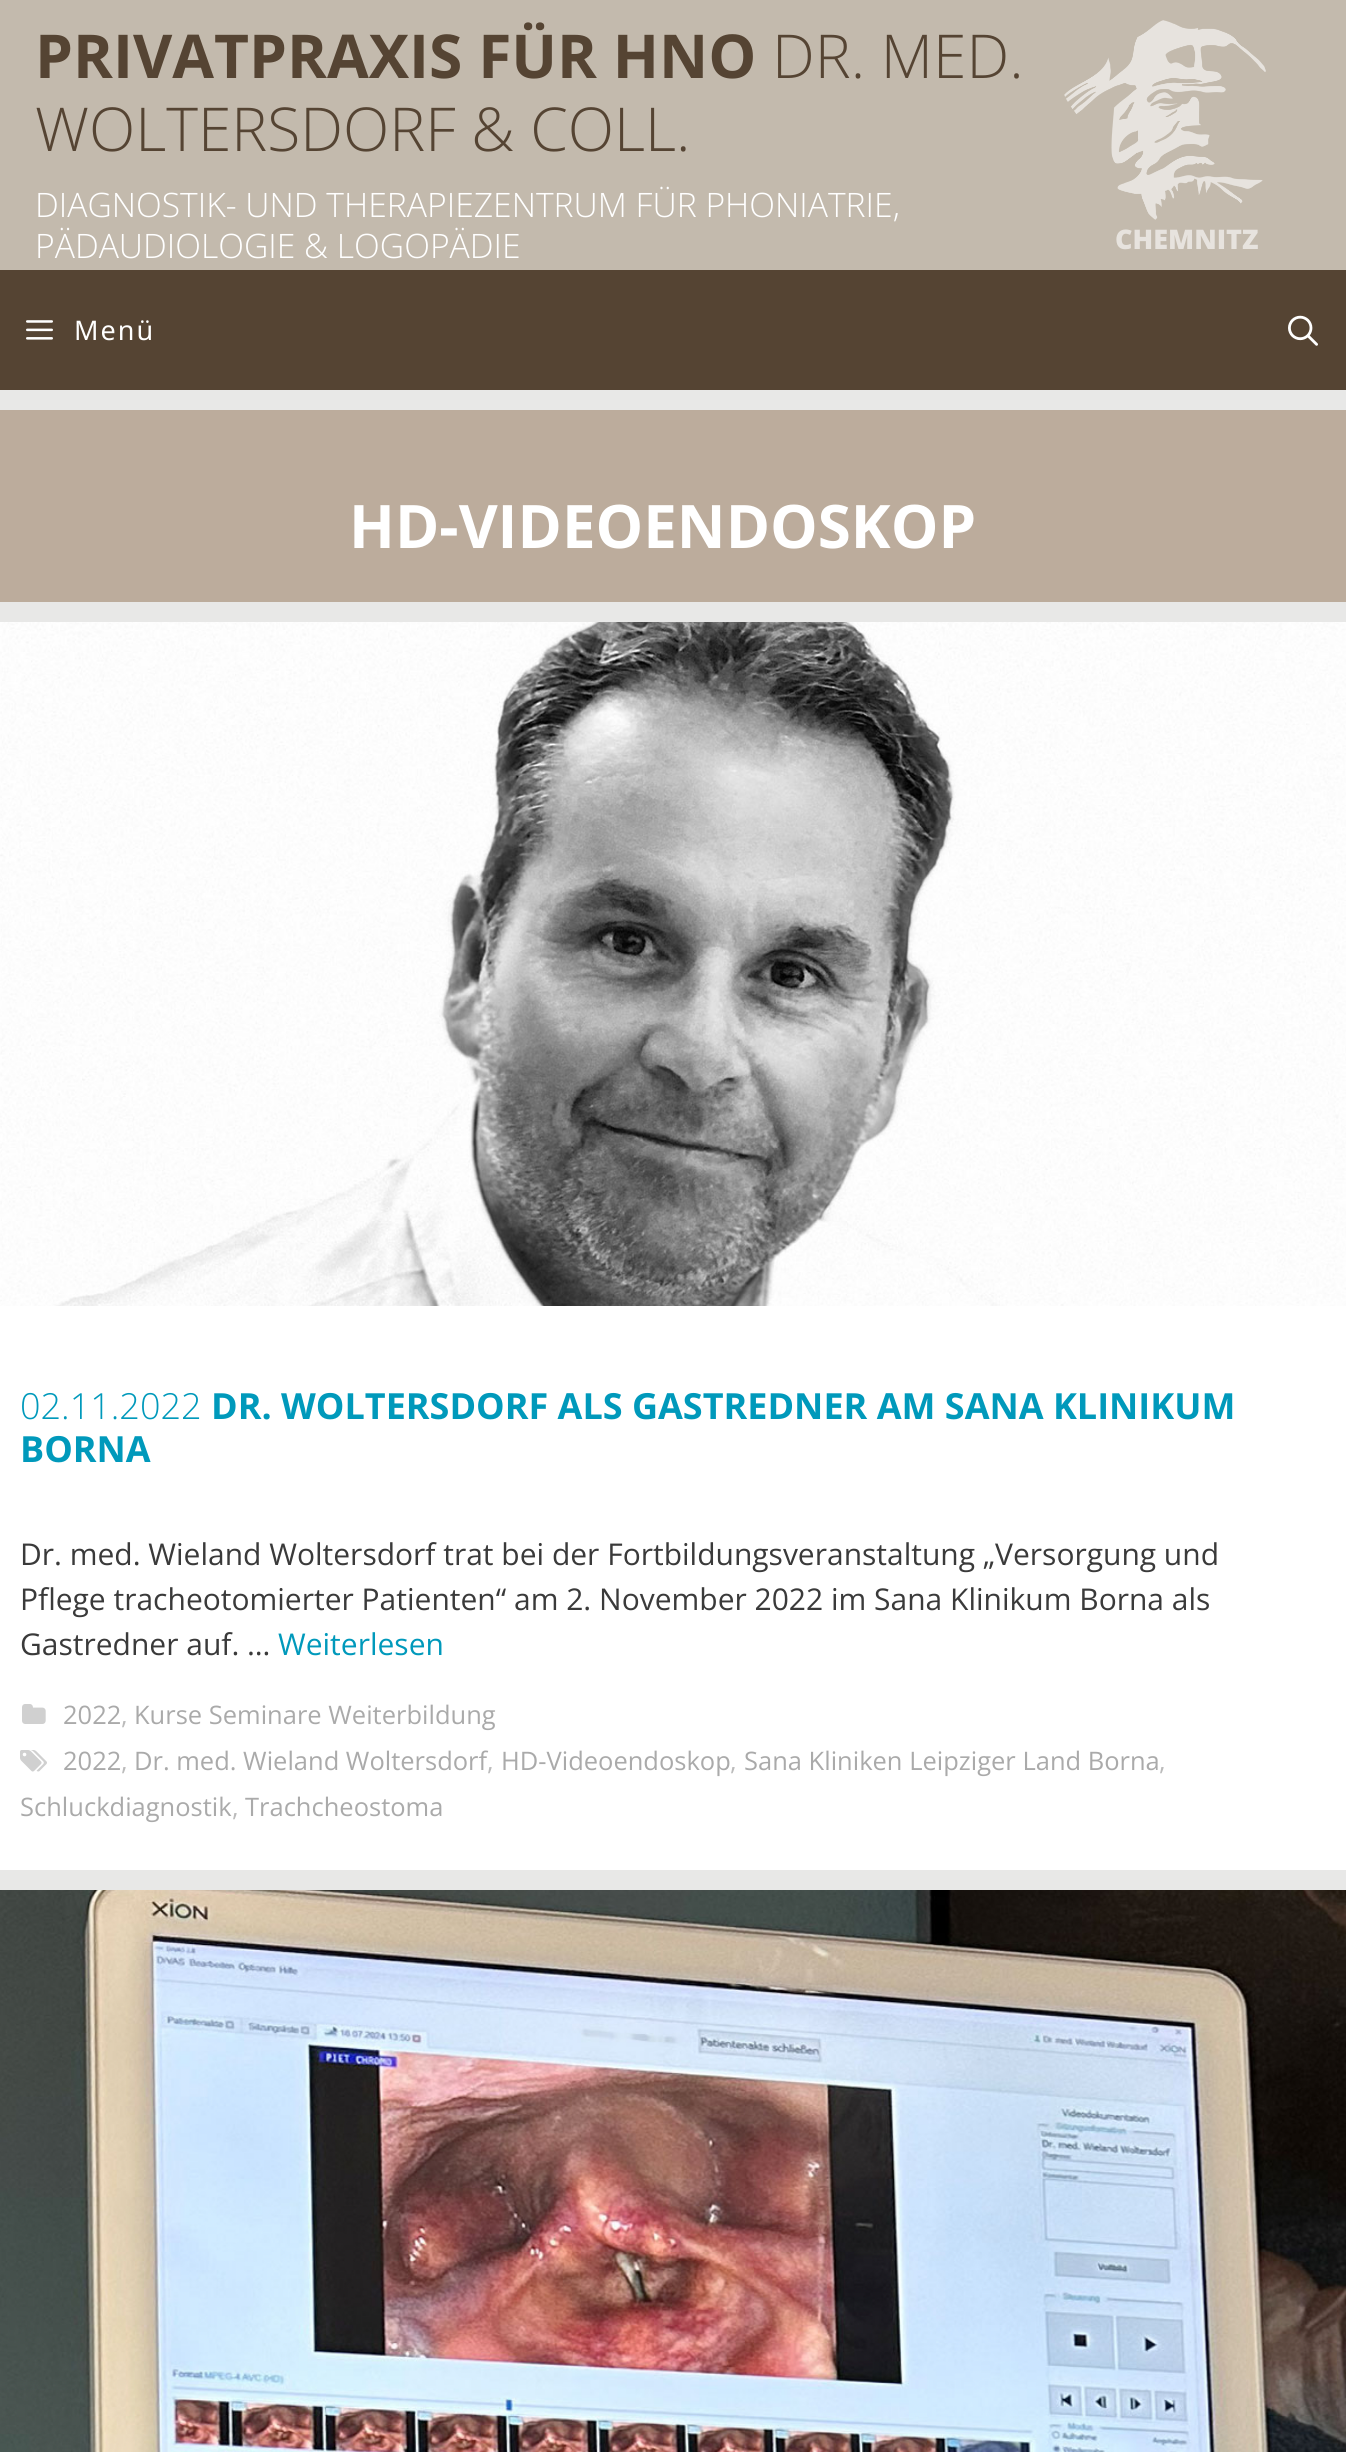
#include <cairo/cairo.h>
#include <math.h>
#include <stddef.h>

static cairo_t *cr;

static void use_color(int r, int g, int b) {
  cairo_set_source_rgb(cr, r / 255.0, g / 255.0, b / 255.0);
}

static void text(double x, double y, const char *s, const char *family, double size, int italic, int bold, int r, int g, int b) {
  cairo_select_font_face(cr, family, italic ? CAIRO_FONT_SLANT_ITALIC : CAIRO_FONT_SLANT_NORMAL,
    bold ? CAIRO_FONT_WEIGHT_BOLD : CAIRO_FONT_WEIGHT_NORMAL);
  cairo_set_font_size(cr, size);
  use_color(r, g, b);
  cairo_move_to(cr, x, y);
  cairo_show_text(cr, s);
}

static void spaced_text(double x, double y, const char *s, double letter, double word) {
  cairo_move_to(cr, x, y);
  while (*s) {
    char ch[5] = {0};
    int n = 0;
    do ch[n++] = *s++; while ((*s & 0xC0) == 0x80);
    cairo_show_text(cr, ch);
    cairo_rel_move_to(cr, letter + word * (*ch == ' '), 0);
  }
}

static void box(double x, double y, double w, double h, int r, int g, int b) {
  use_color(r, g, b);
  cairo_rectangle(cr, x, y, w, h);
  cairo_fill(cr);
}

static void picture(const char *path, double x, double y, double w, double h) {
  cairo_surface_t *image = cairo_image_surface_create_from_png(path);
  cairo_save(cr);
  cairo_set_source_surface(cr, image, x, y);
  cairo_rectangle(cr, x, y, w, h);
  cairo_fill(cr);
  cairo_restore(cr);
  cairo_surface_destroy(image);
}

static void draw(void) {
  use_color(232, 232, 231);
  cairo_paint(cr);
  box(0, 0, 1346, 270, 195, 186, 173);
  picture("img_01.png", 1064, 20, 202, 200);
  box(0, 270, 1346, 120, 85, 68, 51);
  picture("img_02.png", 26, 320, 27, 20);
  picture("img_03.png", 1288, 315, 30, 31);
  box(0, 410, 1346, 192, 188, 172, 156);
  picture("img_04.png", 0, 622, 1346, 684);
  box(0, 1306, 1346, 564, 255, 255, 255);
  picture("img_05.png", 22, 1704, 24, 20);
  picture("img_06.png", 20, 1750, 27, 22);
  picture("img_07.png", 0, 1890, 1346, 562);
  text(35, 78, "PRIVATPRAXIS FÜR HNO", "Open Sans", 60.5, 0, 1, 85, 68, 51);
  text(772, 78, "DR. MED.", "Open Sans Light", 60.5, 0, 0, 85, 68, 51);
  text(35, 151, "WOLTERSDORF & COLL.", "Open Sans Light", 60.5, 0, 0, 85, 68, 51);
  text(35, 217, "DIAGNOSTIK- UND THERAPIEZENTRUM FÜR PHONIATRIE,", "Open Sans Light", 33.65, 0, 0, 255, 255, 255);
  text(35, 258, "PÄDAUDIOLOGIE & LOGOPÄDIE", "Open Sans Light", 33.65, 0, 0, 255, 255, 255);
  text(1115, 249, "CHEMNITZ", "Open Sans ExtraBold", 27, 0, 0, 231, 227, 222);
  cairo_select_font_face(cr, "Noto Sans", CAIRO_FONT_SLANT_NORMAL, CAIRO_FONT_WEIGHT_NORMAL);
  use_color(255, 255, 255);
  spaced_text(74, 340, "Menü", 2, 0);
  text(349, 548, "HD-VIDEOENDOSKOP", "Open Sans", 60, 0, 1, 255, 255, 255);
  text(20, 1419, "02.11.2022", "Open Sans Light", 36, 0, 0, 0, 153, 187);
  text(211, 1419, "DR. WOLTERSDORF ALS GASTREDNER AM SANA KLINIKUM", "Open Sans", 36, 0, 1, 0, 153, 187);
  text(20, 1462, "BORNA", "Open Sans", 36, 0, 1, 0, 153, 187);
  text(20, 1565, "Dr. med. Wieland Woltersdorf trat bei der Fortbildungsveranstaltung „Versorgung und", "Open Sans", 30, 0, 0, 58, 58, 58);
  text(20, 1610, "Pflege tracheotomierter Patienten“ am 2. November 2022 im Sana Klinikum Borna als", "Open Sans", 30, 0, 0, 58, 58, 58);
  text(20, 1655, "Gastredner auf. …", "Open Sans", 30, 0, 0, 58, 58, 58);
  text(278, 1655, "Weiterlesen", "Open Sans", 30, 0, 0, 0, 153, 187);
  text(63, 1724, "2022", "Open Sans", 25.5, 0, 0, 170, 170, 170);
  text(121, 1724, ",", "Open Sans", 25.5, 0, 0, 187, 187, 187);
  text(134, 1724, "Kurse Seminare Weiterbildung", "Open Sans", 25.5, 0, 0, 170, 170, 170);
  text(63, 1770, "2022", "Open Sans", 25.5, 0, 0, 170, 170, 170);
  text(121, 1770, ",", "Open Sans", 25.5, 0, 0, 187, 187, 187);
  text(134, 1770, "Dr. med. Wieland Woltersdorf", "Open Sans", 25.5, 0, 0, 170, 170, 170);
  text(487, 1770, ",", "Open Sans", 25.5, 0, 0, 187, 187, 187);
  text(501, 1770, "HD-Videoendoskop", "Open Sans", 25.5, 0, 0, 170, 170, 170);
  text(730, 1770, ",", "Open Sans", 25.5, 0, 0, 187, 187, 187);
  text(744, 1770, "Sana Kliniken Leipziger Land Borna", "Open Sans", 25.5, 0, 0, 170, 170, 170);
  text(1159, 1770, ",", "Open Sans", 25.5, 0, 0, 187, 187, 187);
  text(20, 1816, "Schluckdiagnostik", "Open Sans", 25.5, 0, 0, 170, 170, 170);
  text(232, 1816, ",", "Open Sans", 25.5, 0, 0, 187, 187, 187);
  text(245, 1816, "Trachcheostoma", "Open Sans", 25.5, 0, 0, 170, 170, 170);
}

int main(void) {
  cairo_surface_t *surface = cairo_image_surface_create(CAIRO_FORMAT_RGB24, 1346, 2452);
  cr = cairo_create(surface);
  cairo_font_options_t *options = cairo_font_options_create();
  cairo_font_options_set_hint_metrics(options, CAIRO_HINT_METRICS_OFF);
  cairo_font_options_set_hint_style(options, CAIRO_HINT_STYLE_NONE);
  cairo_set_font_options(cr, options);
  cairo_set_miter_limit(cr, 4);
  draw();
  cairo_surface_write_to_png(surface, "out.png");
  cairo_font_options_destroy(options);
  cairo_destroy(cr);
  cairo_surface_destroy(surface);
  return 0;
}
